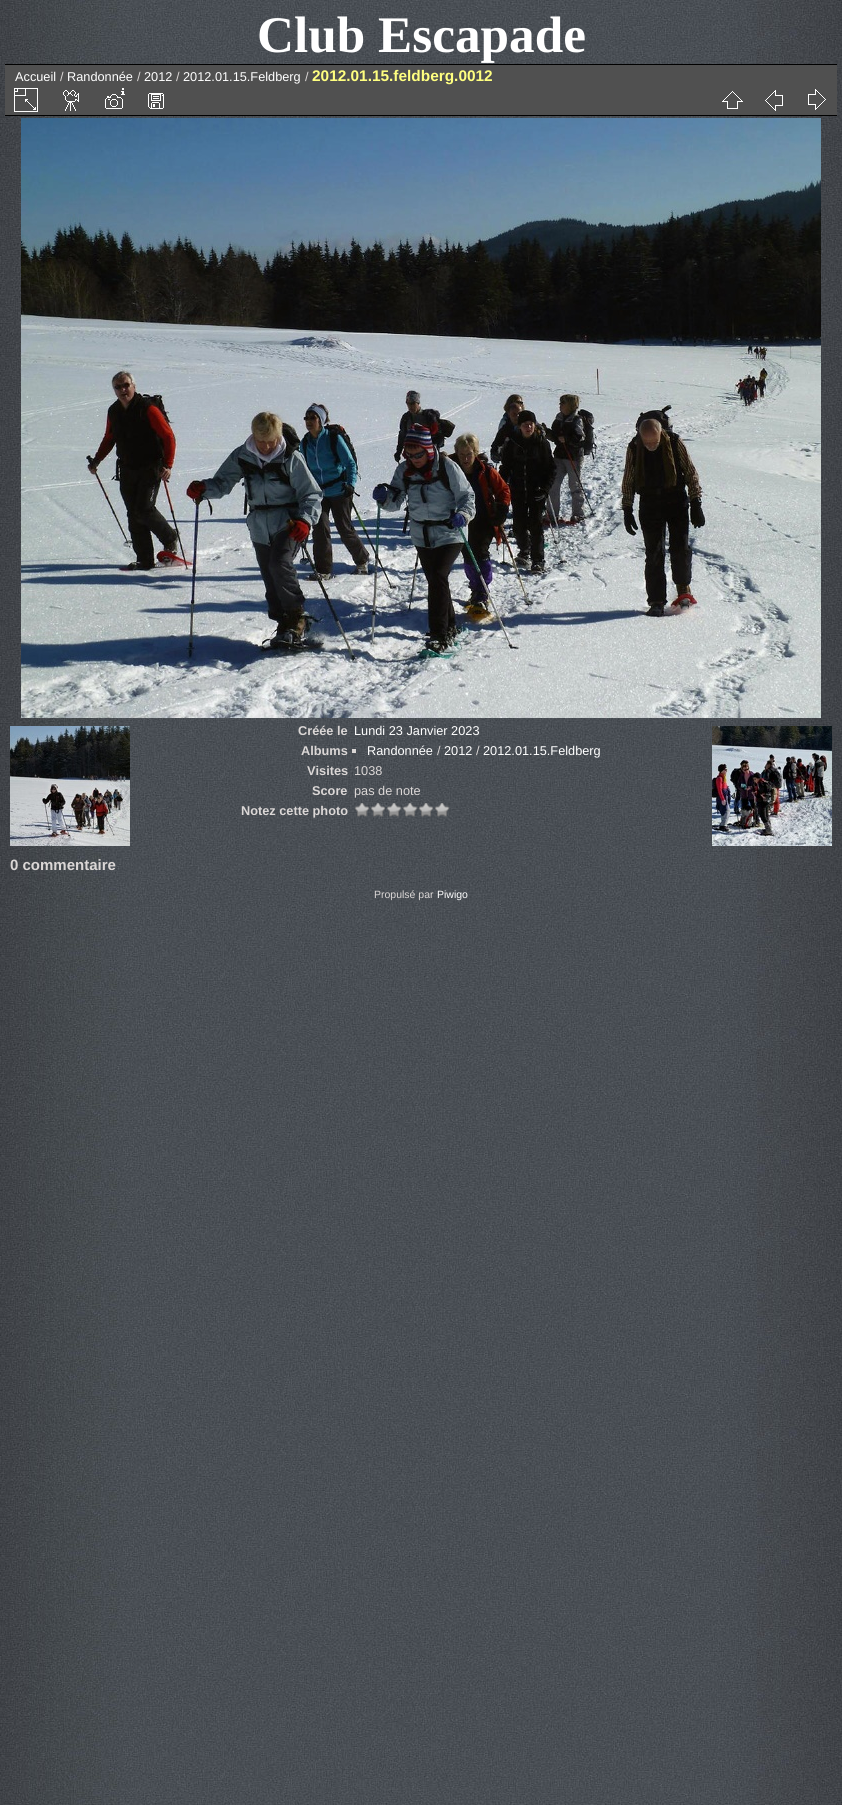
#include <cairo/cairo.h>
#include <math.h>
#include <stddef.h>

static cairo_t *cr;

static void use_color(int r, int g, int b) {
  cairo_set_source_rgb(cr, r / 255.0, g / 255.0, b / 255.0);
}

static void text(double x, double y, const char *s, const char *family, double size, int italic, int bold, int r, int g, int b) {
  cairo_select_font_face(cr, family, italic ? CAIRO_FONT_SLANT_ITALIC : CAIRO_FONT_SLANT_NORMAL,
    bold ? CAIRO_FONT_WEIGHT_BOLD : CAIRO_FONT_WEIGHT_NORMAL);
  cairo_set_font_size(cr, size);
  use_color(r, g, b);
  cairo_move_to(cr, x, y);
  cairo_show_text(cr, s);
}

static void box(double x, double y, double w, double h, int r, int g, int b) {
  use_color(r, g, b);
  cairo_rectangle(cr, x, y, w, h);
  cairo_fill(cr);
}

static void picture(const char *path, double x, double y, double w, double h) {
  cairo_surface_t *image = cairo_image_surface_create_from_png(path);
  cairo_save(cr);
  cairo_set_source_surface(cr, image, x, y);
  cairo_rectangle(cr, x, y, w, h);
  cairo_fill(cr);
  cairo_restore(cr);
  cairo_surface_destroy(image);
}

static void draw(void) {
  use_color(255, 255, 255);
  cairo_paint(cr);
  picture("img_01.png", 0, 0, 842, 1805);
  box(5, 65, 832, 50, 80, 80, 80);
  box(5, 115, 832, 1, 0, 0, 0);
  picture("img_02.png", 14, 88, 24, 24);
  picture("img_03.png", 63, 90, 16, 21);
  picture("img_04.png", 105, 88, 20, 21);
  picture("img_05.png", 148, 93, 16, 16);
  picture("img_06.png", 722, 91, 21, 18);
  picture("img_07.png", 765, 90, 18, 21);
  picture("img_08.png", 808, 89, 18, 21);
  box(5, 64, 832, 1, 0, 0, 0);
  picture("img_09.png", 21, 118, 800, 600);
  box(352, 749, 4, 4, 219, 215, 214);
  picture("img_10.png", 354, 803, 16, 14);
  picture("img_11.png", 370, 803, 16, 14);
  picture("img_12.png", 387, 803, 15, 14);
  picture("img_13.png", 402, 803, 16, 14);
  picture("img_14.png", 418, 803, 16, 14);
  picture("img_15.png", 434, 803, 16, 14);
  picture("img_16.png", 10, 726, 120, 120);
  picture("img_17.png", 712, 726, 120, 120);
  text(257, 52, "Club Escapade", "Liberation Serif", 51.25, 0, 1, 255, 255, 255);
  text(15, 81, "Accueil", "Liberation Sans", 12.75, 0, 0, 255, 255, 255);
  text(60, 81, "/", "Liberation Sans", 12.75, 0, 0, 219, 215, 214);
  text(67, 81, "Randonnée", "Liberation Sans", 12.75, 0, 0, 255, 255, 255);
  text(137, 81, "/", "Liberation Sans", 12.75, 0, 0, 219, 215, 214);
  text(144, 81, "2012", "Liberation Sans", 12.75, 0, 0, 255, 255, 255);
  text(176, 81, "/", "Liberation Sans", 12.75, 0, 0, 219, 215, 214);
  text(183, 81, "2012.01.15.Feldberg", "Liberation Sans", 12.75, 0, 0, 255, 255, 255);
  text(305, 81, "/", "Liberation Sans", 12.75, 0, 0, 219, 215, 214);
  text(312, 81, "2012.01.15.feldberg.0012", "Liberation Sans", 15.4, 0, 1, 255, 255, 128);
  text(298, 735, "Créée le", "Liberation Sans", 12.75, 0, 1, 219, 215, 214);
  text(354, 735, "Lundi 23 Janvier 2023", "Liberation Sans", 12.75, 0, 0, 255, 255, 255);
  text(301, 755, "Albums", "Liberation Sans", 12.75, 0, 1, 219, 215, 214);
  text(367, 755, "Randonnée", "Liberation Sans", 12.75, 0, 0, 255, 255, 255);
  text(437, 755, "/", "Liberation Sans", 12.75, 0, 0, 219, 215, 214);
  text(444, 755, "2012", "Liberation Sans", 12.75, 0, 0, 255, 255, 255);
  text(476, 755, "/", "Liberation Sans", 12.75, 0, 0, 219, 215, 214);
  text(483, 755, "2012.01.15.Feldberg", "Liberation Sans", 12.75, 0, 0, 255, 255, 255);
  text(307, 775, "Visites", "Liberation Sans", 12.75, 0, 1, 219, 215, 214);
  text(354, 775, "1038", "Liberation Sans", 12.75, 0, 0, 219, 215, 214);
  text(312, 795, "Score", "Liberation Sans", 12.75, 0, 1, 219, 215, 214);
  text(354, 795, "pas de note", "Liberation Sans", 12.75, 0, 0, 219, 215, 214);
  text(241, 815, "Notez cette photo", "Liberation Sans", 12.75, 0, 1, 219, 215, 214);
  text(10, 870, "0 commentaire", "Liberation Sans", 15, 0, 1, 219, 215, 214);
  text(374, 898, "Propulsé par", "Liberation Sans", 10.5, 0, 0, 219, 215, 214);
  text(437, 898, "Piwigo", "Liberation Sans", 10.5, 0, 0, 255, 255, 255);
}

int main(void) {
  cairo_surface_t *surface = cairo_image_surface_create(CAIRO_FORMAT_RGB24, 842, 1805);
  cr = cairo_create(surface);
  cairo_font_options_t *options = cairo_font_options_create();
  cairo_font_options_set_hint_metrics(options, CAIRO_HINT_METRICS_OFF);
  cairo_font_options_set_hint_style(options, CAIRO_HINT_STYLE_NONE);
  cairo_set_font_options(cr, options);
  cairo_set_miter_limit(cr, 4);
  draw();
  cairo_surface_write_to_png(surface, "out.png");
  cairo_font_options_destroy(options);
  cairo_destroy(cr);
  cairo_surface_destroy(surface);
  return 0;
}
